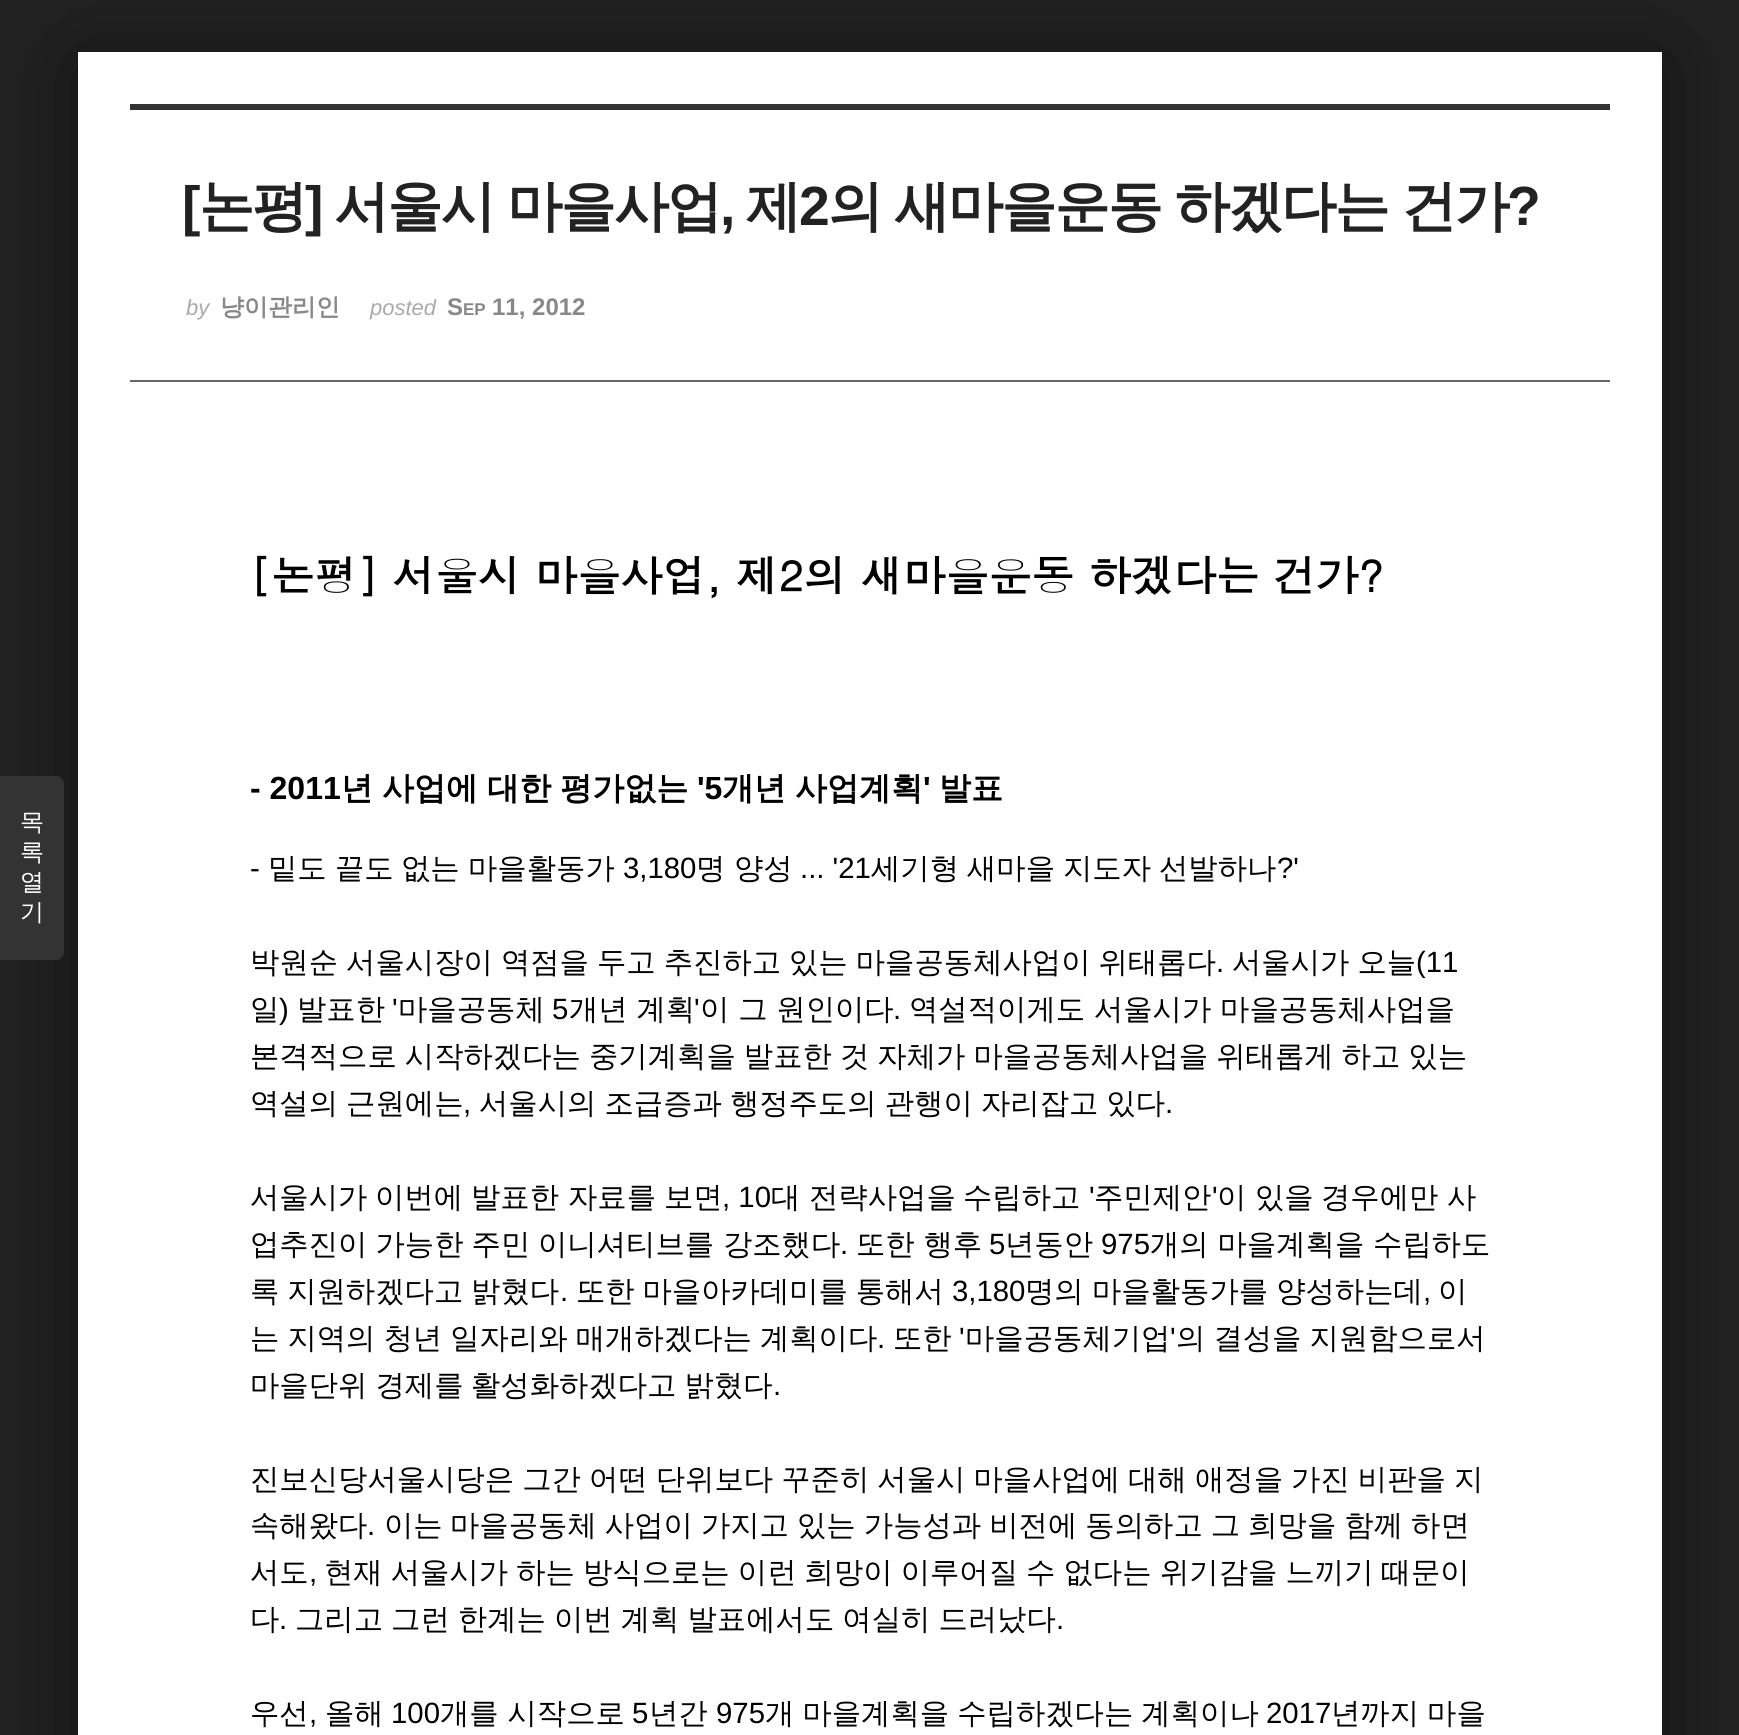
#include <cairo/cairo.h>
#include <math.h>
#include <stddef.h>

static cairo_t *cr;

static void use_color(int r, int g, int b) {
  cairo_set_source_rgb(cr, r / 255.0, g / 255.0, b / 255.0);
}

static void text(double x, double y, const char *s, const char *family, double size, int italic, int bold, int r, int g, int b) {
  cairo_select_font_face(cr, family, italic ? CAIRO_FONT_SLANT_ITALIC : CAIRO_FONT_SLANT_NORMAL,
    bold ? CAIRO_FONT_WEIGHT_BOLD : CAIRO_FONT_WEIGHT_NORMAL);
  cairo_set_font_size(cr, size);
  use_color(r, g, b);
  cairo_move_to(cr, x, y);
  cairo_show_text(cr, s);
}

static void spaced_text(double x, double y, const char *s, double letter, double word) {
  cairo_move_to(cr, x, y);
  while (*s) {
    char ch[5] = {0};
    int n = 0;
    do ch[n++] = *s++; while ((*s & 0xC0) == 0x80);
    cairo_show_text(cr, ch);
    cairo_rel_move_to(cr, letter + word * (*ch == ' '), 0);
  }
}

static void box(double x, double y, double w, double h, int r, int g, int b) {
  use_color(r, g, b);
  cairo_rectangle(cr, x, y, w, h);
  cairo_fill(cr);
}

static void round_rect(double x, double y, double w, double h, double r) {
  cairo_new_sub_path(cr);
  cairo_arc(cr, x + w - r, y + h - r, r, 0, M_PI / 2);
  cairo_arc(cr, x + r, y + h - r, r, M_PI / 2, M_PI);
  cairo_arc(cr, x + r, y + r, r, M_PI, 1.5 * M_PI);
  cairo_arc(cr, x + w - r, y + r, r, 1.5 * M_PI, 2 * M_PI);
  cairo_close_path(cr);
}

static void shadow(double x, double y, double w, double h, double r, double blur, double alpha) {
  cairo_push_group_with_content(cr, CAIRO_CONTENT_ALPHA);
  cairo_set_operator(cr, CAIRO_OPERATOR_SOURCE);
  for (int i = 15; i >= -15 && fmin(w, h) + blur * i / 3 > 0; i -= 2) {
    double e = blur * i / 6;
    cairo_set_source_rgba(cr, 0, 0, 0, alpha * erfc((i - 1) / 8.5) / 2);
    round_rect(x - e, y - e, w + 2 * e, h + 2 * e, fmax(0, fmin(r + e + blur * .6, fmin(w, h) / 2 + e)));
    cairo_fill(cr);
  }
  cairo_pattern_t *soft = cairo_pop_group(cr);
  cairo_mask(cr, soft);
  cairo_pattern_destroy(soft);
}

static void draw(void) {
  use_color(34, 34, 34);
  cairo_paint(cr);
  use_color(0, 0, 0);
  shadow(78, 60, 1584, 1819, 0, 48, 0.5);
  box(78, 52, 1584, 1683, 255, 255, 255);
  use_color(51, 51, 51);
  cairo_new_path(cr);
  cairo_move_to(cr, 0, 776);
  cairo_line_to(cr, 56, 776);
  cairo_curve_to(cr, 60.5, 776, 64, 779.5, 64, 784);
  cairo_line_to(cr, 64, 952);
  cairo_curve_to(cr, 64, 956.5, 60.5, 960, 56, 960);
  cairo_line_to(cr, 0, 960);
  cairo_close_path(cr);
  cairo_fill(cr);
  box(130, 104, 1480, 6, 51, 51, 51);
  box(130, 380, 1480, 2, 102, 102, 102);
  text(20, 830, "목", "WenQuanYi Zen Hei Medium", 24, 0, 0, 255, 255, 255);
  text(20, 860, "록", "WenQuanYi Zen Hei Medium", 24, 0, 0, 255, 255, 255);
  text(20, 890, "열", "WenQuanYi Zen Hei Medium", 24, 0, 0, 255, 255, 255);
  text(20, 920, "기", "WenQuanYi Zen Hei Medium", 24, 0, 0, 255, 255, 255);
  cairo_select_font_face(cr, "Liberation Sans", CAIRO_FONT_SLANT_NORMAL, CAIRO_FONT_WEIGHT_BOLD);
  cairo_set_font_size(cr, 55.25);
  use_color(34, 34, 34);
  spaced_text(182, 225, "[", -2, 0);
  cairo_select_font_face(cr, "WenQuanYi Zen Hei", CAIRO_FONT_SLANT_NORMAL, CAIRO_FONT_WEIGHT_BOLD);
  spaced_text(199, 225, "논평", -2, 0);
  cairo_select_font_face(cr, "Liberation Sans", CAIRO_FONT_SLANT_NORMAL, CAIRO_FONT_WEIGHT_BOLD);
  spaced_text(305, 225, "]", -2, 0);
  cairo_select_font_face(cr, "WenQuanYi Zen Hei", CAIRO_FONT_SLANT_NORMAL, CAIRO_FONT_WEIGHT_BOLD);
  spaced_text(334, 225, "서울시 마을사업", -2, -1);
  cairo_select_font_face(cr, "Liberation Sans", CAIRO_FONT_SLANT_NORMAL, CAIRO_FONT_WEIGHT_BOLD);
  spaced_text(720, 225, ",", -2, 0);
  cairo_select_font_face(cr, "WenQuanYi Zen Hei", CAIRO_FONT_SLANT_NORMAL, CAIRO_FONT_WEIGHT_BOLD);
  spaced_text(746, 225, "제", -2, 0);
  cairo_select_font_face(cr, "Liberation Sans", CAIRO_FONT_SLANT_NORMAL, CAIRO_FONT_WEIGHT_BOLD);
  spaced_text(799, 225, "2", -2, 0);
  cairo_select_font_face(cr, "WenQuanYi Zen Hei", CAIRO_FONT_SLANT_NORMAL, CAIRO_FONT_WEIGHT_BOLD);
  spaced_text(828, 225, "의 새마을운동 하겠다는 건가", -2, -1);
  cairo_select_font_face(cr, "Liberation Sans", CAIRO_FONT_SLANT_NORMAL, CAIRO_FONT_WEIGHT_BOLD);
  spaced_text(1507, 225, "?", -2, 0);
  text(186, 315, "by", "Liberation Sans", 22, 1, 0, 170, 170, 170);
  text(220, 315, "냥이관리인", "WenQuanYi Zen Hei", 24, 0, 1, 136, 136, 136);
  text(370, 315, "posted", "Liberation Sans", 22, 1, 0, 170, 170, 170);
  text(447, 315, "S", "Liberation Sans", 24, 0, 1, 136, 136, 136);
  text(463, 315, "EP", "Liberation Sans", 17, 0, 1, 136, 136, 136);
  text(492, 315, "11, 2012", "Liberation Sans", 24, 0, 1, 136, 136, 136);
  text(250, 592, "[논평] 서울시 마을사업, 제2의 새마을운동 하겠다는 건가?", "Dotum", 42.7, 0, 1, 0, 0, 0);
  text(250, 799, "- 2011", "Liberation Sans", 32, 0, 1, 0, 0, 0);
  cairo_select_font_face(cr, "WenQuanYi Zen Hei", CAIRO_FONT_SLANT_NORMAL, CAIRO_FONT_WEIGHT_BOLD);
  spaced_text(341, 799, "년 사업에 대한 평가없는", 0, -0.5);
  text(697, 799, "'5", "Liberation Sans", 32, 0, 1, 0, 0, 0);
  cairo_select_font_face(cr, "WenQuanYi Zen Hei", CAIRO_FONT_SLANT_NORMAL, CAIRO_FONT_WEIGHT_BOLD);
  spaced_text(722, 799, "개년 사업계획", 0, -0.5);
  text(923, 799, "'", "Liberation Sans", 32, 0, 1, 0, 0, 0);
  text(939, 799, "발표", "WenQuanYi Zen Hei", 32, 0, 1, 0, 0, 0);
  text(250, 878, "-", "Liberation Sans", 29.35, 0, 0, 0, 0, 0);
  text(268, 878, "밑도", "WenQuanYi Zen Hei Medium", 29.35, 0, 0, 0, 0, 0);
  text(335, 878, "끝도", "WenQuanYi Zen Hei Medium", 29.35, 0, 0, 0, 0, 0);
  text(401, 878, "없는", "WenQuanYi Zen Hei Medium", 29.35, 0, 0, 0, 0, 0);
  text(468, 878, "마을활동가", "WenQuanYi Zen Hei Medium", 29.35, 0, 0, 0, 0, 0);
  text(623, 878, "3,180", "Liberation Sans", 29.35, 0, 0, 0, 0, 0);
  text(696, 878, "명", "WenQuanYi Zen Hei Medium", 29.35, 0, 0, 0, 0, 0);
  text(734, 878, "양성", "WenQuanYi Zen Hei Medium", 29.35, 0, 0, 0, 0, 0);
  text(800, 878, "... '21", "Liberation Sans", 29.35, 0, 0, 0, 0, 0);
  text(871, 878, "세기형", "WenQuanYi Zen Hei Medium", 29.35, 0, 0, 0, 0, 0);
  text(967, 878, "새마을", "WenQuanYi Zen Hei Medium", 29.35, 0, 0, 0, 0, 0);
  text(1063, 878, "지도자", "WenQuanYi Zen Hei Medium", 29.35, 0, 0, 0, 0, 0);
  text(1159, 878, "선발하나", "WenQuanYi Zen Hei Medium", 29.35, 0, 0, 0, 0, 0);
  text(1277, 878, "?'", "Liberation Sans", 29.35, 0, 0, 0, 0, 0);
  cairo_select_font_face(cr, "WenQuanYi Zen Hei Medium", CAIRO_FONT_SLANT_NORMAL, CAIRO_FONT_WEIGHT_NORMAL);
  spaced_text(250, 972, "박원순 서울시장이 역점을 두고 추진하고", 0, -0.75);
  spaced_text(789, 972, "있는 마을공동체사업이 위태롭다", 0, -0.75);
  text(1216, 972, ".", "Liberation Sans", 29.35, 0, 0, 0, 0, 0);
  cairo_select_font_face(cr, "WenQuanYi Zen Hei Medium", CAIRO_FONT_SLANT_NORMAL, CAIRO_FONT_WEIGHT_NORMAL);
  spaced_text(1232, 972, "서울시가 오늘", 0, -0.75);
  text(1416, 972, "(11", "Liberation Sans", 29.35, 0, 0, 0, 0, 0);
  text(250, 1019, "일", "WenQuanYi Zen Hei Medium", 29.35, 0, 0, 0, 0, 0);
  text(279, 1019, ")", "Liberation Sans", 29.35, 0, 0, 0, 0, 0);
  text(297, 1019, "발표한", "WenQuanYi Zen Hei Medium", 29.35, 0, 0, 0, 0, 0);
  text(392, 1019, "'", "Liberation Sans", 29.35, 0, 0, 0, 0, 0);
  text(398, 1019, "마을공동체", "WenQuanYi Zen Hei Medium", 29.35, 0, 0, 0, 0, 0);
  text(552, 1019, "5", "Liberation Sans", 29.35, 0, 0, 0, 0, 0);
  text(569, 1019, "개년 계획", "WenQuanYi Zen Hei Medium", 29.35, 0, 0, 0, 0, 0);
  text(694, 1019, "'", "Liberation Sans", 29.35, 0, 0, 0, 0, 0);
  text(700, 1019, "이 그 원인이다", "WenQuanYi Zen Hei Medium", 29.35, 0, 0, 0, 0, 0);
  text(909, 1019, "역설적이게도 서울시가 마을공동체사업을", "WenQuanYi Zen Hei Medium", 29.35, 0, 0, 0, 0, 0);
  text(893, 1019, ".", "Liberation Sans", 29.35, 0, 0, 0, 0, 0);
  cairo_select_font_face(cr, "WenQuanYi Zen Hei Medium", CAIRO_FONT_SLANT_NORMAL, CAIRO_FONT_WEIGHT_NORMAL);
  spaced_text(250, 1066, "본격적으로 시작하겠다는 중기계획을 발표한 것 자체가 마을공동체사업을 위태롭게 하고 있는", 0, -0.75);
  spaced_text(250, 1113, "역설의 근원에는", 0, -0.75);
  text(463, 1113, ",", "Liberation Sans", 29.35, 0, 0, 0, 0, 0);
  cairo_select_font_face(cr, "WenQuanYi Zen Hei Medium", CAIRO_FONT_SLANT_NORMAL, CAIRO_FONT_WEIGHT_NORMAL);
  spaced_text(479, 1113, "서울시의 조급증과 행정주도의 관행이", 0, -0.75);
  spaced_text(981, 1113, "자리잡고 있다", 0, -0.75);
  text(1165, 1113, ".", "Liberation Sans", 29.35, 0, 0, 0, 0, 0);
  text(250, 1207, "서울시가", "WenQuanYi Zen Hei Medium", 29.35, 0, 0, 0, 0, 0);
  text(375, 1207, "이번에", "WenQuanYi Zen Hei Medium", 29.35, 0, 0, 0, 0, 0);
  text(471, 1207, "발표한", "WenQuanYi Zen Hei Medium", 29.35, 0, 0, 0, 0, 0);
  text(568, 1207, "자료를", "WenQuanYi Zen Hei Medium", 29.35, 0, 0, 0, 0, 0);
  text(664, 1207, "보면", "WenQuanYi Zen Hei Medium", 29.35, 0, 0, 0, 0, 0);
  text(722, 1207, ", 10", "Liberation Sans", 29.35, 0, 0, 0, 0, 0);
  text(771, 1207, "대", "WenQuanYi Zen Hei Medium", 29.35, 0, 0, 0, 0, 0);
  text(809, 1207, "전략사업을", "WenQuanYi Zen Hei Medium", 29.35, 0, 0, 0, 0, 0);
  text(963, 1207, "수립하고", "WenQuanYi Zen Hei Medium", 29.35, 0, 0, 0, 0, 0);
  text(1089, 1207, "'", "Liberation Sans", 29.35, 0, 0, 0, 0, 0);
  text(1094, 1207, "주민제안", "WenQuanYi Zen Hei Medium", 29.35, 0, 0, 0, 0, 0);
  text(1212, 1207, "'", "Liberation Sans", 29.35, 0, 0, 0, 0, 0);
  text(1217, 1207, "이", "WenQuanYi Zen Hei Medium", 29.35, 0, 0, 0, 0, 0);
  text(1255, 1207, "있을", "WenQuanYi Zen Hei Medium", 29.35, 0, 0, 0, 0, 0);
  text(1321, 1207, "경우에만", "WenQuanYi Zen Hei Medium", 29.35, 0, 0, 0, 0, 0);
  text(1447, 1207, "사", "WenQuanYi Zen Hei Medium", 29.35, 0, 0, 0, 0, 0);
  spaced_text(250, 1254, "업추진이 가능한 주민", 0, -0.75);
  text(538, 1254, "이니셔티브를 강조했다", "WenQuanYi Zen Hei Medium", 29.35, 0, 0, 0, 0, 0);
  text(840, 1254, ".", "Liberation Sans", 29.35, 0, 0, 0, 0, 0);
  text(856, 1254, "또한 행후", "WenQuanYi Zen Hei Medium", 29.35, 0, 0, 0, 0, 0);
  text(989, 1254, "5", "Liberation Sans", 29.35, 0, 0, 0, 0, 0);
  text(1005, 1254, "년동안", "WenQuanYi Zen Hei Medium", 29.35, 0, 0, 0, 0, 0);
  text(1101, 1254, "975", "Liberation Sans", 29.35, 0, 0, 0, 0, 0);
  text(1150, 1254, "개의 마을계획을 수립하도", "WenQuanYi Zen Hei Medium", 29.35, 0, 0, 0, 0, 0);
  spaced_text(250, 1301, "록 지원하겠다고 밝혔다", 0, -1);
  text(560, 1301, ".", "Liberation Sans", 29.35, 0, 0, 0, 0, 0);
  cairo_select_font_face(cr, "WenQuanYi Zen Hei Medium", CAIRO_FONT_SLANT_NORMAL, CAIRO_FONT_WEIGHT_NORMAL);
  spaced_text(576, 1301, "또한 마을아카데미를 통해서", 0, -1);
  text(952, 1301, "3,180", "Liberation Sans", 29.35, 0, 0, 0, 0, 0);
  text(1025, 1301, "명의", "WenQuanYi Zen Hei Medium", 29.35, 0, 0, 0, 0, 0);
  spaced_text(1092, 1301, "마을활동가를 양성하는데", 0, -0.75);
  text(1423, 1301, ",", "Liberation Sans", 29.35, 0, 0, 0, 0, 0);
  text(1438, 1301, "이", "WenQuanYi Zen Hei Medium", 29.35, 0, 0, 0, 0, 0);
  spaced_text(250, 1348, "는 지역의 청년 일자리와 매개하겠다는 계획이다", 0, -0.75);
  text(893, 1348, "또한", "WenQuanYi Zen Hei Medium", 29.35, 0, 0, 0, 0, 0);
  text(959, 1348, "'", "Liberation Sans", 29.35, 0, 0, 0, 0, 0);
  text(965, 1348, "마을공동체기업", "WenQuanYi Zen Hei Medium", 29.35, 0, 0, 0, 0, 0);
  text(1170, 1348, "'", "Liberation Sans", 29.35, 0, 0, 0, 0, 0);
  cairo_select_font_face(cr, "WenQuanYi Zen Hei Medium", CAIRO_FONT_SLANT_NORMAL, CAIRO_FONT_WEIGHT_NORMAL);
  spaced_text(1176, 1348, "의 결성을 지원함으로서", 0, -0.75);
  text(877, 1348, ".", "Liberation Sans", 29.35, 0, 0, 0, 0, 0);
  cairo_select_font_face(cr, "WenQuanYi Zen Hei Medium", CAIRO_FONT_SLANT_NORMAL, CAIRO_FONT_WEIGHT_NORMAL);
  spaced_text(250, 1395, "마을단위 경제를", 0, -0.75);
  spaced_text(471, 1395, "활성화하겠다고 밝혔다", 0, -0.75);
  text(773, 1395, ".", "Liberation Sans", 29.35, 0, 0, 0, 0, 0);
  cairo_select_font_face(cr, "WenQuanYi Zen Hei Medium", CAIRO_FONT_SLANT_NORMAL, CAIRO_FONT_WEIGHT_NORMAL);
  spaced_text(250, 1489, "진보신당서울시당은 그간 어떤 단위보다 꾸준히 서울시 마을사업에 대해 애정을 가진 비판을 지", 0, -0.75);
  text(250, 1535, "속해왔다", "WenQuanYi Zen Hei Medium", 29.35, 0, 0, 0, 0, 0);
  text(367, 1535, ".", "Liberation Sans", 29.35, 0, 0, 0, 0, 0);
  text(384, 1535, "이는", "WenQuanYi Zen Hei Medium", 29.35, 0, 0, 0, 0, 0);
  spaced_text(450, 1535, "마을공동체 사업이 가지고 있는 가능성과 비전에 동의하고 그 희망을 함께 하면", 0, -0.75);
  text(250, 1582, "서도", "WenQuanYi Zen Hei Medium", 29.35, 0, 0, 0, 0, 0);
  text(309, 1582, ",", "Liberation Sans", 29.35, 0, 0, 0, 0, 0);
  cairo_select_font_face(cr, "WenQuanYi Zen Hei Medium", CAIRO_FONT_SLANT_NORMAL, CAIRO_FONT_WEIGHT_NORMAL);
  spaced_text(324, 1582, "현재 서울시가 하는 방식으로는 이런 희망이 이루어질 수 없다는", 0, -0.75);
  spaced_text(1160, 1582, "위기감을 느끼기 때문이", 0, -0.75);
  text(250, 1629, "다", "WenQuanYi Zen Hei Medium", 29.35, 0, 0, 0, 0, 0);
  text(279, 1629, ".", "Liberation Sans", 29.35, 0, 0, 0, 0, 0);
  cairo_select_font_face(cr, "WenQuanYi Zen Hei Medium", CAIRO_FONT_SLANT_NORMAL, CAIRO_FONT_WEIGHT_NORMAL);
  spaced_text(295, 1629, "그리고 그런 한계는 이번 계획 발표에서도 여실히 드러났다", 0, -0.75);
  text(1056, 1629, ".", "Liberation Sans", 29.35, 0, 0, 0, 0, 0);
  text(250, 1723, "우선", "WenQuanYi Zen Hei Medium", 29.35, 0, 0, 0, 0, 0);
  text(309, 1723, ",", "Liberation Sans", 29.35, 0, 0, 0, 0, 0);
  text(325, 1723, "올해", "WenQuanYi Zen Hei Medium", 29.35, 0, 0, 0, 0, 0);
  text(391, 1723, "100", "Liberation Sans", 29.35, 0, 0, 0, 0, 0);
  text(440, 1723, "개를 시작으로", "WenQuanYi Zen Hei Medium", 29.35, 0, 0, 0, 0, 0);
  text(632, 1723, "5", "Liberation Sans", 29.35, 0, 0, 0, 0, 0);
  text(649, 1723, "년간", "WenQuanYi Zen Hei Medium", 29.35, 0, 0, 0, 0, 0);
  text(716, 1723, "975", "Liberation Sans", 29.35, 0, 0, 0, 0, 0);
  cairo_select_font_face(cr, "WenQuanYi Zen Hei Medium", CAIRO_FONT_SLANT_NORMAL, CAIRO_FONT_WEIGHT_NORMAL);
  spaced_text(765, 1723, "개 마을계획을 수립하겠다는 계획이나", 0, -0.75);
  text(1266, 1723, "2017", "Liberation Sans", 29.35, 0, 0, 0, 0, 0);
  cairo_select_font_face(cr, "WenQuanYi Zen Hei Medium", CAIRO_FONT_SLANT_NORMAL, CAIRO_FONT_WEIGHT_NORMAL);
  spaced_text(1331, 1723, "년까지 마을", 0, -0.75);
}

int main(void) {
  cairo_surface_t *surface = cairo_image_surface_create(CAIRO_FORMAT_RGB24, 1739, 1735);
  cr = cairo_create(surface);
  cairo_font_options_t *options = cairo_font_options_create();
  cairo_font_options_set_hint_metrics(options, CAIRO_HINT_METRICS_OFF);
  cairo_font_options_set_hint_style(options, CAIRO_HINT_STYLE_NONE);
  cairo_set_font_options(cr, options);
  cairo_set_miter_limit(cr, 4);
  draw();
  cairo_surface_write_to_png(surface, "out.png");
  cairo_font_options_destroy(options);
  cairo_destroy(cr);
  cairo_surface_destroy(surface);
  return 0;
}
